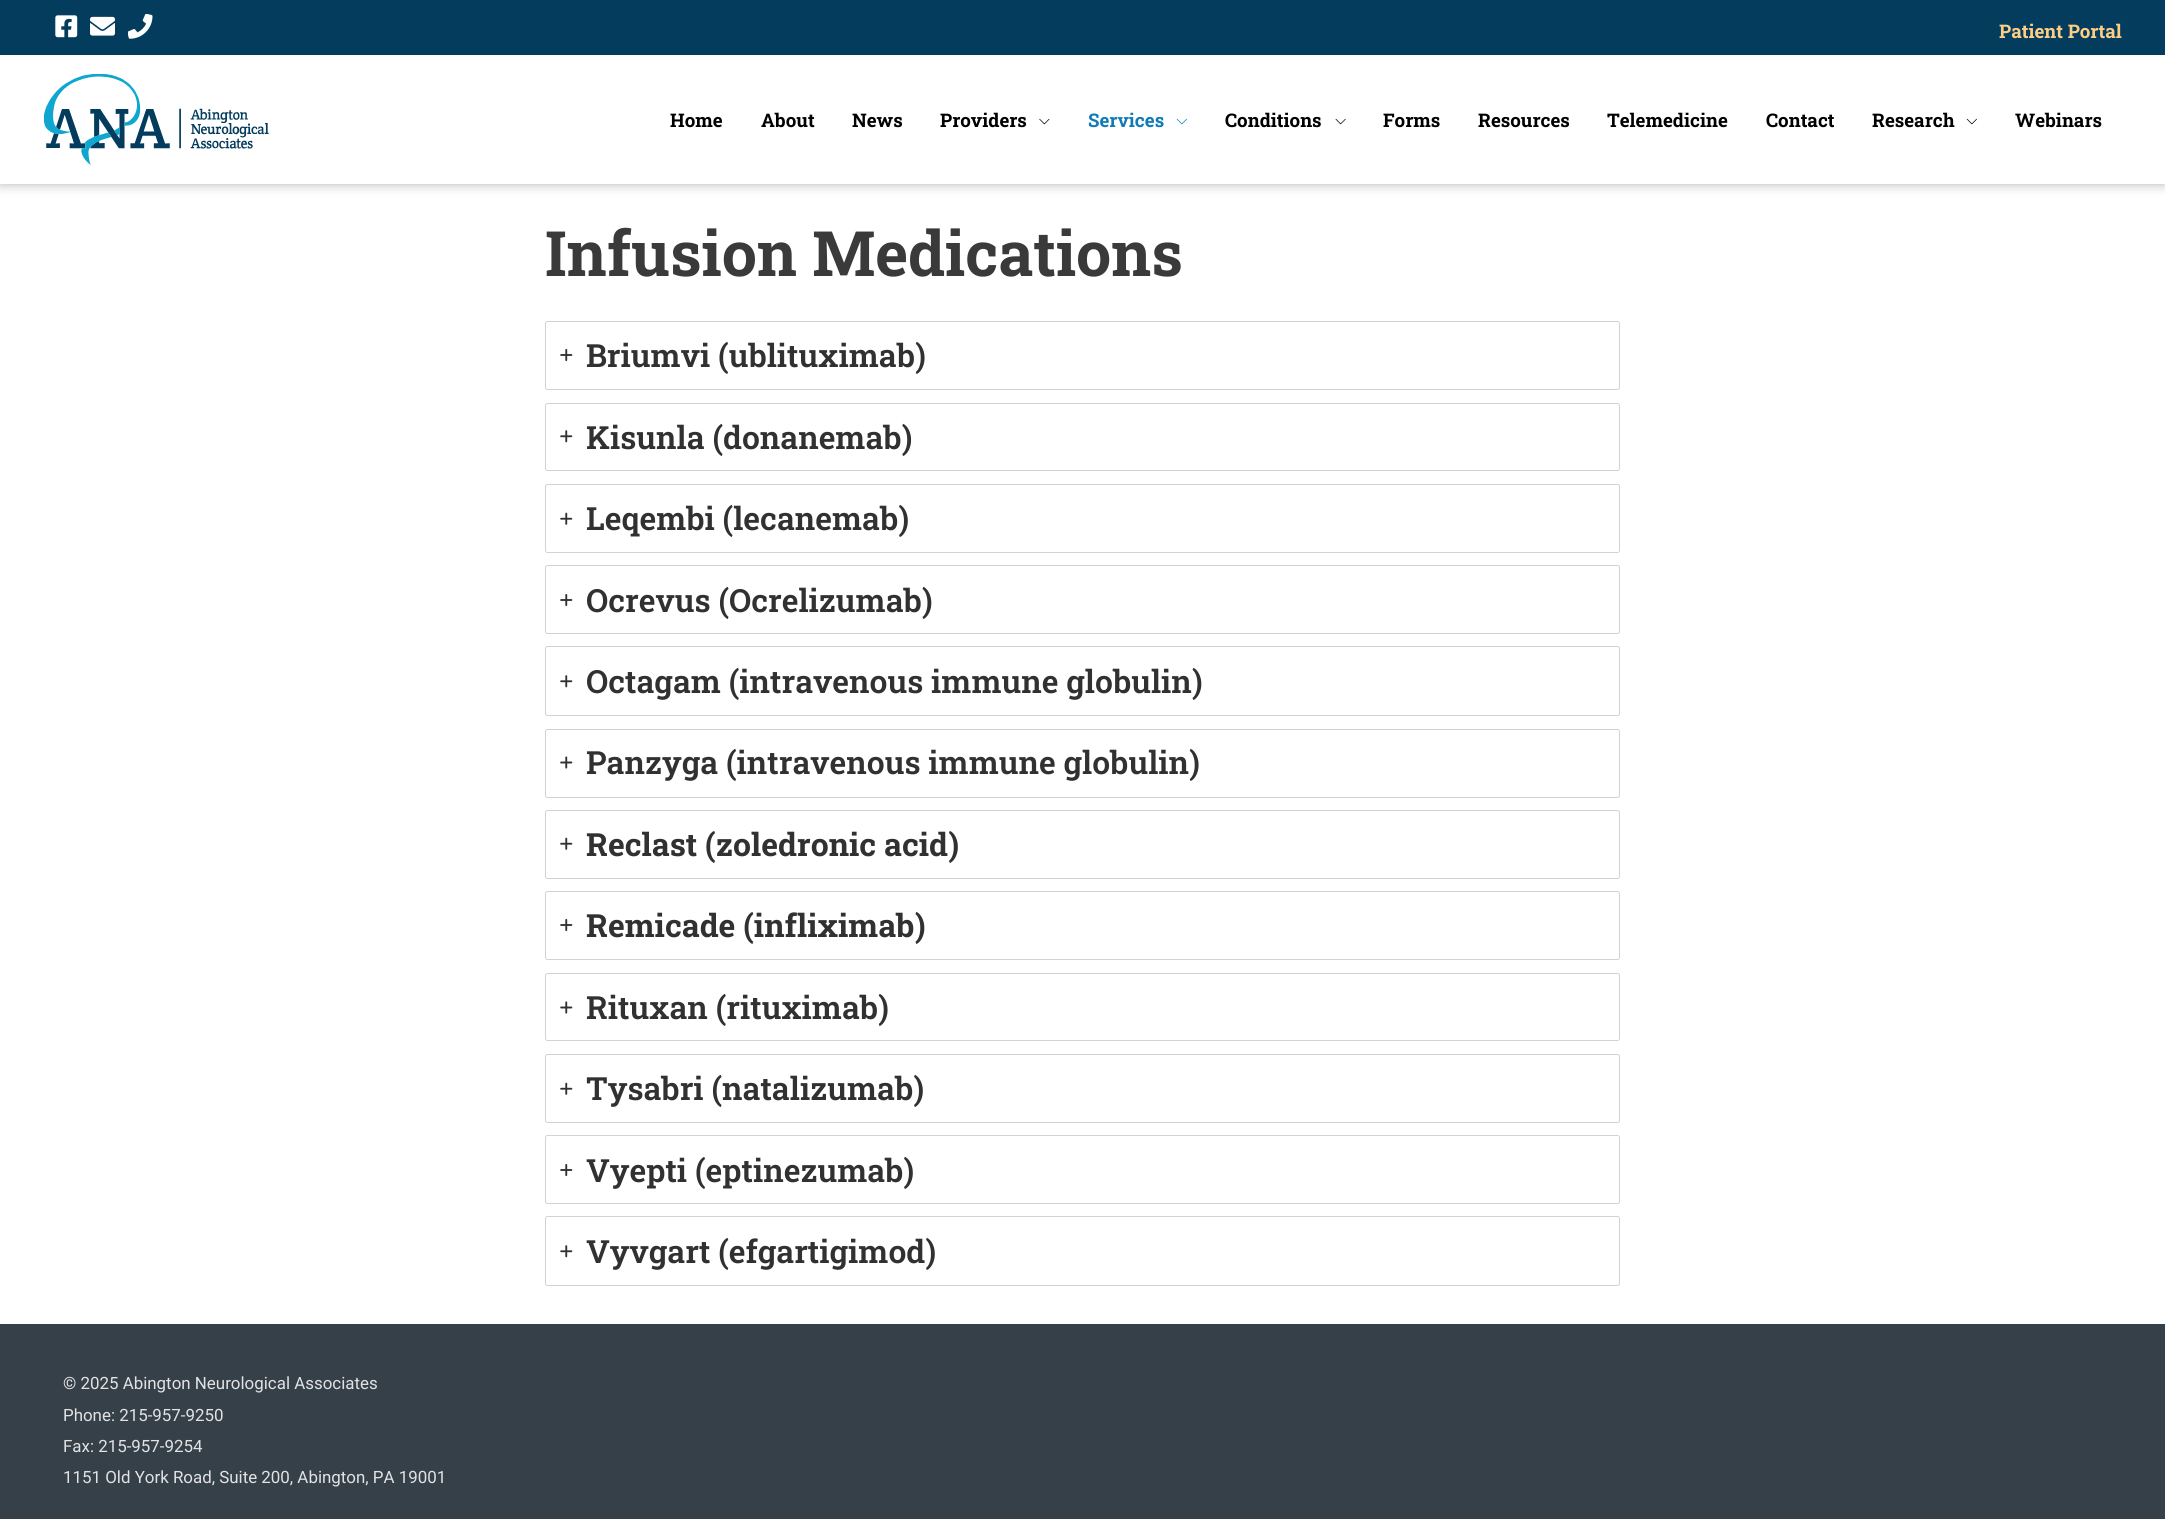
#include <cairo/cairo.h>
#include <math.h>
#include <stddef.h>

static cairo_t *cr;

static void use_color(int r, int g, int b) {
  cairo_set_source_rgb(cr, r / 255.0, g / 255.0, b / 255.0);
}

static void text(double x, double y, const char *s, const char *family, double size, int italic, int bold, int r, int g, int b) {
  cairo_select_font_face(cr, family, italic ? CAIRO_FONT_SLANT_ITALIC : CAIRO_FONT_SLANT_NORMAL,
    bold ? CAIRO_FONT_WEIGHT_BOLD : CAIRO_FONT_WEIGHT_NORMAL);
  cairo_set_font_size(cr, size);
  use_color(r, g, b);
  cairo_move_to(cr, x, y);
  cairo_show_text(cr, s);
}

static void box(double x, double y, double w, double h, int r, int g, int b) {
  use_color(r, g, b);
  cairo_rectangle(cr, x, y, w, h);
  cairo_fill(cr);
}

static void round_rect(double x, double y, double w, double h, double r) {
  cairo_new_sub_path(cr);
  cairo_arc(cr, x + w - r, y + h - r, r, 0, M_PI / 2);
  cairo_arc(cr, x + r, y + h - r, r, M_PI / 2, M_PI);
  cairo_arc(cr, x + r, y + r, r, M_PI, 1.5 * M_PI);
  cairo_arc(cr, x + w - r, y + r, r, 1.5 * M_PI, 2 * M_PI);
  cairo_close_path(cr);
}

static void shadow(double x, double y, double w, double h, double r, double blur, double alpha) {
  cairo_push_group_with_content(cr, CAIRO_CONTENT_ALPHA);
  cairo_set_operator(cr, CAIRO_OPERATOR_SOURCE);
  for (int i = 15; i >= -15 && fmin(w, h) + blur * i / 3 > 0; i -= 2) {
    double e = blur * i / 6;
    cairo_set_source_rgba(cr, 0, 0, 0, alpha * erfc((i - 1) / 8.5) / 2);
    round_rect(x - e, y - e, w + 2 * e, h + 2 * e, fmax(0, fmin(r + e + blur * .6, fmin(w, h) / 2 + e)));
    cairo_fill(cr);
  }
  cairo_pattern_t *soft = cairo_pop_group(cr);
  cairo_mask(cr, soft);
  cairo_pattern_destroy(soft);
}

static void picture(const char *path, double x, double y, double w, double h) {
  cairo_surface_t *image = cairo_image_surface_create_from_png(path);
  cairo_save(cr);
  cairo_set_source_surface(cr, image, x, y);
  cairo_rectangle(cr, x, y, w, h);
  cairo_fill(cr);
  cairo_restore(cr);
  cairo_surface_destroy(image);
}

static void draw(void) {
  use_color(255, 255, 255);
  cairo_paint(cr);
  use_color(0, 0, 0);
  shadow(0, 55, 2165, 129, 0, 6, 0.3);
  box(0, 0, 2165, 55, 3, 60, 92);
  picture("img_01.png", 55, 15, 23, 23);
  picture("img_02.png", 90, 16, 25, 20);
  picture("img_03.png", 128, 14, 25, 25);
  box(0, 55, 2165, 129, 255, 255, 255);
  picture("img_04.png", 44, 74, 225, 91);
  picture("img_05.png", 1039, 118, 11, 7);
  picture("img_06.png", 1176, 118, 11, 7);
  picture("img_07.png", 1335, 118, 11, 7);
  picture("img_08.png", 1966, 118, 11, 7);
  round_rect(545.5, 321.5, 1074, 68, 2);
  use_color(210, 210, 210);
  cairo_set_line_width(cr, 1);
  cairo_stroke(cr);
  picture("img_09.png", 560, 349, 13, 13);
  round_rect(545.5, 403.5, 1074, 67, 2);
  cairo_stroke(cr);
  picture("img_10.png", 560, 430, 13, 13);
  round_rect(545.5, 484.5, 1074, 68, 2);
  cairo_stroke(cr);
  picture("img_11.png", 560, 512, 13, 13);
  round_rect(545.5, 565.5, 1074, 68, 2);
  cairo_stroke(cr);
  picture("img_09.png", 560, 594, 13, 13);
  round_rect(545.5, 646.5, 1074, 69, 2);
  cairo_stroke(cr);
  picture("img_10.png", 560, 675, 13, 13);
  round_rect(545.5, 729.5, 1074, 68, 2);
  cairo_stroke(cr);
  picture("img_12.png", 560, 756, 13, 13);
  round_rect(545.5, 810.5, 1074, 68, 2);
  cairo_stroke(cr);
  picture("img_11.png", 560, 837, 13, 13);
  round_rect(545.5, 891.5, 1074, 68, 2);
  cairo_stroke(cr);
  picture("img_09.png", 560, 919, 13, 13);
  round_rect(545.5, 973.5, 1074, 67, 2);
  cairo_stroke(cr);
  picture("img_12.png", 560, 1001, 13, 13);
  round_rect(545.5, 1054.5, 1074, 68, 2);
  cairo_stroke(cr);
  picture("img_11.png", 560, 1082, 13, 13);
  round_rect(545.5, 1135.5, 1074, 68, 2);
  cairo_stroke(cr);
  picture("img_09.png", 560, 1164, 13, 13);
  round_rect(545.5, 1216.5, 1074, 69, 2);
  cairo_stroke(cr);
  picture("img_10.png", 560, 1245, 13, 13);
  box(0, 1324, 2165, 195, 54, 64, 73);
  text(1999, 38, "Patient Portal", "Roboto Slab", 18.75, 0, 1, 255, 206, 133);
  text(670, 127, "Home", "Roboto Slab", 18.75, 0, 1, 0, 0, 0);
  text(761, 127, "About", "Roboto Slab", 18.75, 0, 1, 0, 0, 0);
  text(852, 127, "News", "Roboto Slab", 18.75, 0, 1, 0, 0, 0);
  text(940, 127, "Providers", "Roboto Slab", 18.75, 0, 1, 0, 0, 0);
  text(1088, 127, "Services", "Roboto Slab", 18.75, 0, 1, 17, 123, 184);
  text(1225, 127, "Conditions", "Roboto Slab", 18.75, 0, 1, 0, 0, 0);
  text(1383, 127, "Forms", "Roboto Slab", 18.75, 0, 1, 0, 0, 0);
  text(1478, 127, "Resources", "Roboto Slab", 18.75, 0, 1, 0, 0, 0);
  text(1607, 127, "Telemedicine", "Roboto Slab", 18.75, 0, 1, 0, 0, 0);
  text(1766, 127, "Contact", "Roboto Slab", 18.75, 0, 1, 0, 0, 0);
  text(1872, 127, "Research", "Roboto Slab", 18.75, 0, 1, 0, 0, 0);
  text(2015, 127, "Webinars", "Roboto Slab", 18.75, 0, 1, 0, 0, 0);
  text(545, 276, "Infusion Medications", "Roboto Slab", 62.5, 0, 1, 58, 58, 58);
  text(586, 367, "Briumvi (ublituximab)", "Roboto Slab SemiBold", 31.9, 0, 0, 49, 49, 49);
  text(586, 449, "Kisunla (donanemab)", "Roboto Slab SemiBold", 31.9, 0, 0, 49, 49, 49);
  text(586, 530, "Leqembi (lecanemab)", "Roboto Slab SemiBold", 31.9, 0, 0, 49, 49, 49);
  text(586, 612, "Ocrevus (Ocrelizumab)", "Roboto Slab SemiBold", 31.9, 0, 0, 49, 49, 49);
  text(586, 693, "Octagam (intravenous immune globulin)", "Roboto Slab SemiBold", 31.9, 0, 0, 49, 49, 49);
  text(586, 774, "Panzyga (intravenous immune globulin)", "Roboto Slab SemiBold", 31.9, 0, 0, 49, 49, 49);
  text(586, 856, "Reclast (zoledronic acid)", "Roboto Slab", 31.9, 0, 1, 49, 49, 49);
  text(586, 937, "Remicade (infliximab)", "Roboto Slab", 31.9, 0, 1, 49, 49, 49);
  text(586, 1019, "Rituxan (rituximab)", "Roboto Slab SemiBold", 31.9, 0, 0, 49, 49, 49);
  text(586, 1100, "Tysabri (natalizumab)", "Roboto Slab SemiBold", 31.9, 0, 0, 49, 49, 49);
  text(586, 1182, "Vyepti (eptinezumab)", "Roboto Slab SemiBold", 31.9, 0, 0, 49, 49, 49);
  text(586, 1263, "Vyvgart (efgartigimod)", "Roboto Slab SemiBold", 31.9, 0, 0, 49, 49, 49);
  text(63, 1389, "© 2025 Abington Neurological Associates", "Roboto", 16.9, 0, 0, 225, 226, 228);
  text(63, 1421, "Phone: 215-957-9250", "Roboto", 16.9, 0, 0, 225, 226, 228);
  text(63, 1452, "Fax: 215-957-9254", "Roboto", 16.9, 0, 0, 225, 226, 228);
  text(63, 1483, "1151 Old York Road, Suite 200, Abington, PA 19001", "Roboto", 16.9, 0, 0, 225, 226, 228);
}

int main(void) {
  cairo_surface_t *surface = cairo_image_surface_create(CAIRO_FORMAT_RGB24, 2165, 1519);
  cr = cairo_create(surface);
  cairo_font_options_t *options = cairo_font_options_create();
  cairo_font_options_set_hint_metrics(options, CAIRO_HINT_METRICS_OFF);
  cairo_font_options_set_hint_style(options, CAIRO_HINT_STYLE_NONE);
  cairo_set_font_options(cr, options);
  cairo_set_miter_limit(cr, 4);
  draw();
  cairo_surface_write_to_png(surface, "out.png");
  cairo_font_options_destroy(options);
  cairo_destroy(cr);
  cairo_surface_destroy(surface);
  return 0;
}
